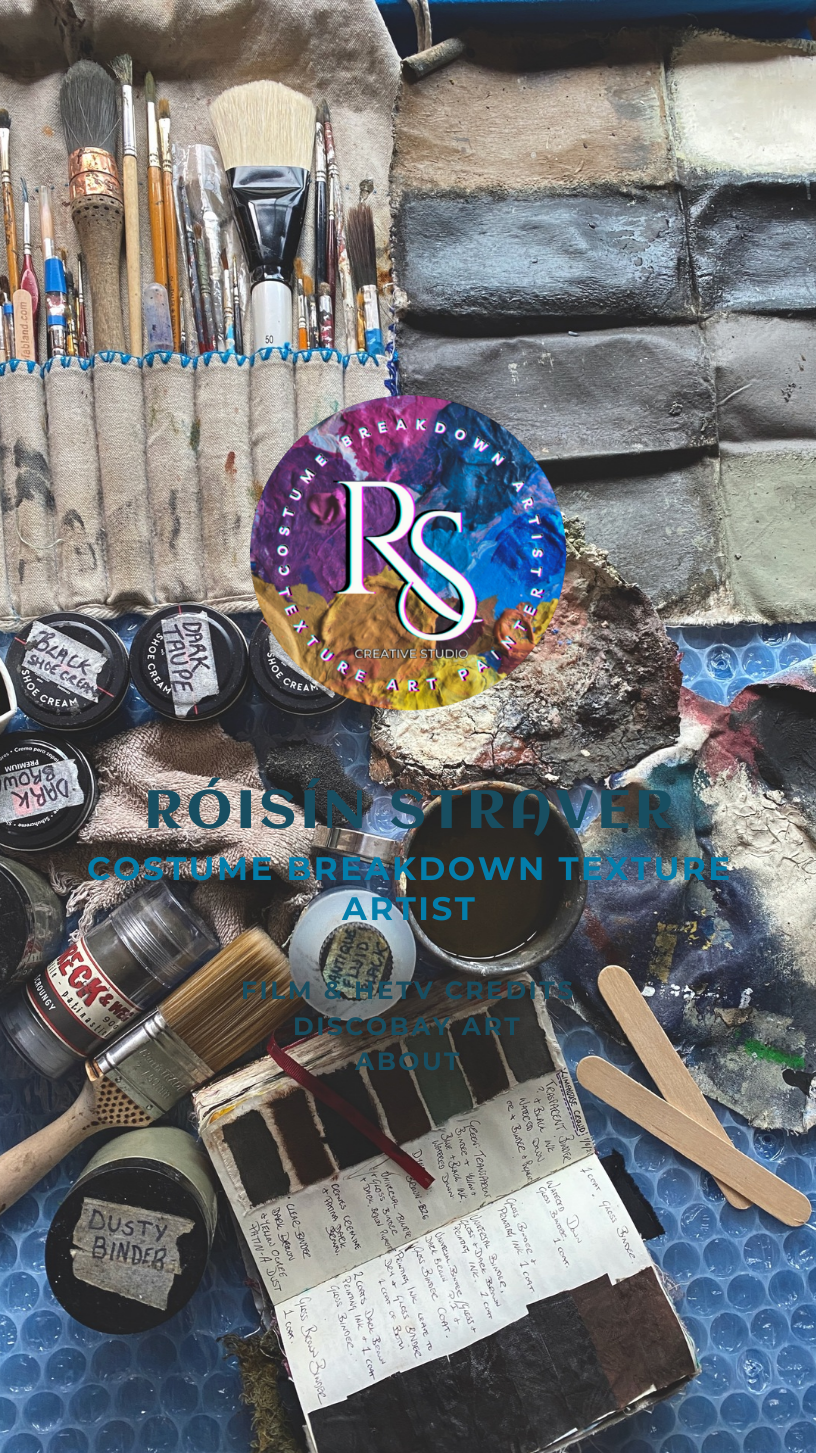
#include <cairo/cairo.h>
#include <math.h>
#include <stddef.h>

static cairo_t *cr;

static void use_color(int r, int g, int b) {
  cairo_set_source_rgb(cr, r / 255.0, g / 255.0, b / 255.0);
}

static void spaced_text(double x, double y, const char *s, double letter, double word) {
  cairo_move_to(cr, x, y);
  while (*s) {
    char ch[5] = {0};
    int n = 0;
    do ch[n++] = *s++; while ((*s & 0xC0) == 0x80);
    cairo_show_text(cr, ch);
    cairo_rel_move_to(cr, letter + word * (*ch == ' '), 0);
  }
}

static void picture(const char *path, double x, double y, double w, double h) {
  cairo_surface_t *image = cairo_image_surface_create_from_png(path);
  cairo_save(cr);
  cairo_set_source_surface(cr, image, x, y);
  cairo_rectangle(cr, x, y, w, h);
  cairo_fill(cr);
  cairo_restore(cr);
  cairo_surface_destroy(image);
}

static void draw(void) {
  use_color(255, 255, 255);
  cairo_paint(cr);
  picture("img_01.png", 0, 0, 816, 1453);
  picture("img_02.png", 250, 395, 317, 316);
  cairo_select_font_face(cr, "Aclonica", CAIRO_FONT_SLANT_NORMAL, CAIRO_FONT_WEIGHT_NORMAL);
  cairo_set_font_size(cr, 53.75);
  use_color(24, 78, 97);
  spaced_text(144, 828, "RÓISÍN STRAVER", 3.75, 0);
  cairo_select_font_face(cr, "Montserrat Thin", CAIRO_FONT_SLANT_NORMAL, CAIRO_FONT_WEIGHT_NORMAL);
  cairo_set_font_size(cr, 32.5);
  use_color(3, 126, 171);
  spaced_text(87, 880, "COSTUME BREAKDOWN TEXTURE", 2.5, 0);
  spaced_text(342, 920, "ARTIST", 2.5, 0);
  cairo_set_font_size(cr, 25);
  use_color(24, 78, 97);
  spaced_text(241, 999, "FILM & HETV CREDITS", 2.5, 0);
  spaced_text(293, 1035, "DISCOBAY ART", 2.5, 0);
  spaced_text(355, 1070, "ABOUT", 2.5, 0);
}

int main(void) {
  cairo_surface_t *surface = cairo_image_surface_create(CAIRO_FORMAT_RGB24, 816, 1453);
  cr = cairo_create(surface);
  cairo_font_options_t *options = cairo_font_options_create();
  cairo_font_options_set_hint_metrics(options, CAIRO_HINT_METRICS_OFF);
  cairo_font_options_set_hint_style(options, CAIRO_HINT_STYLE_NONE);
  cairo_set_font_options(cr, options);
  cairo_set_miter_limit(cr, 4);
  draw();
  cairo_surface_write_to_png(surface, "out.png");
  cairo_font_options_destroy(options);
  cairo_destroy(cr);
  cairo_surface_destroy(surface);
  return 0;
}
